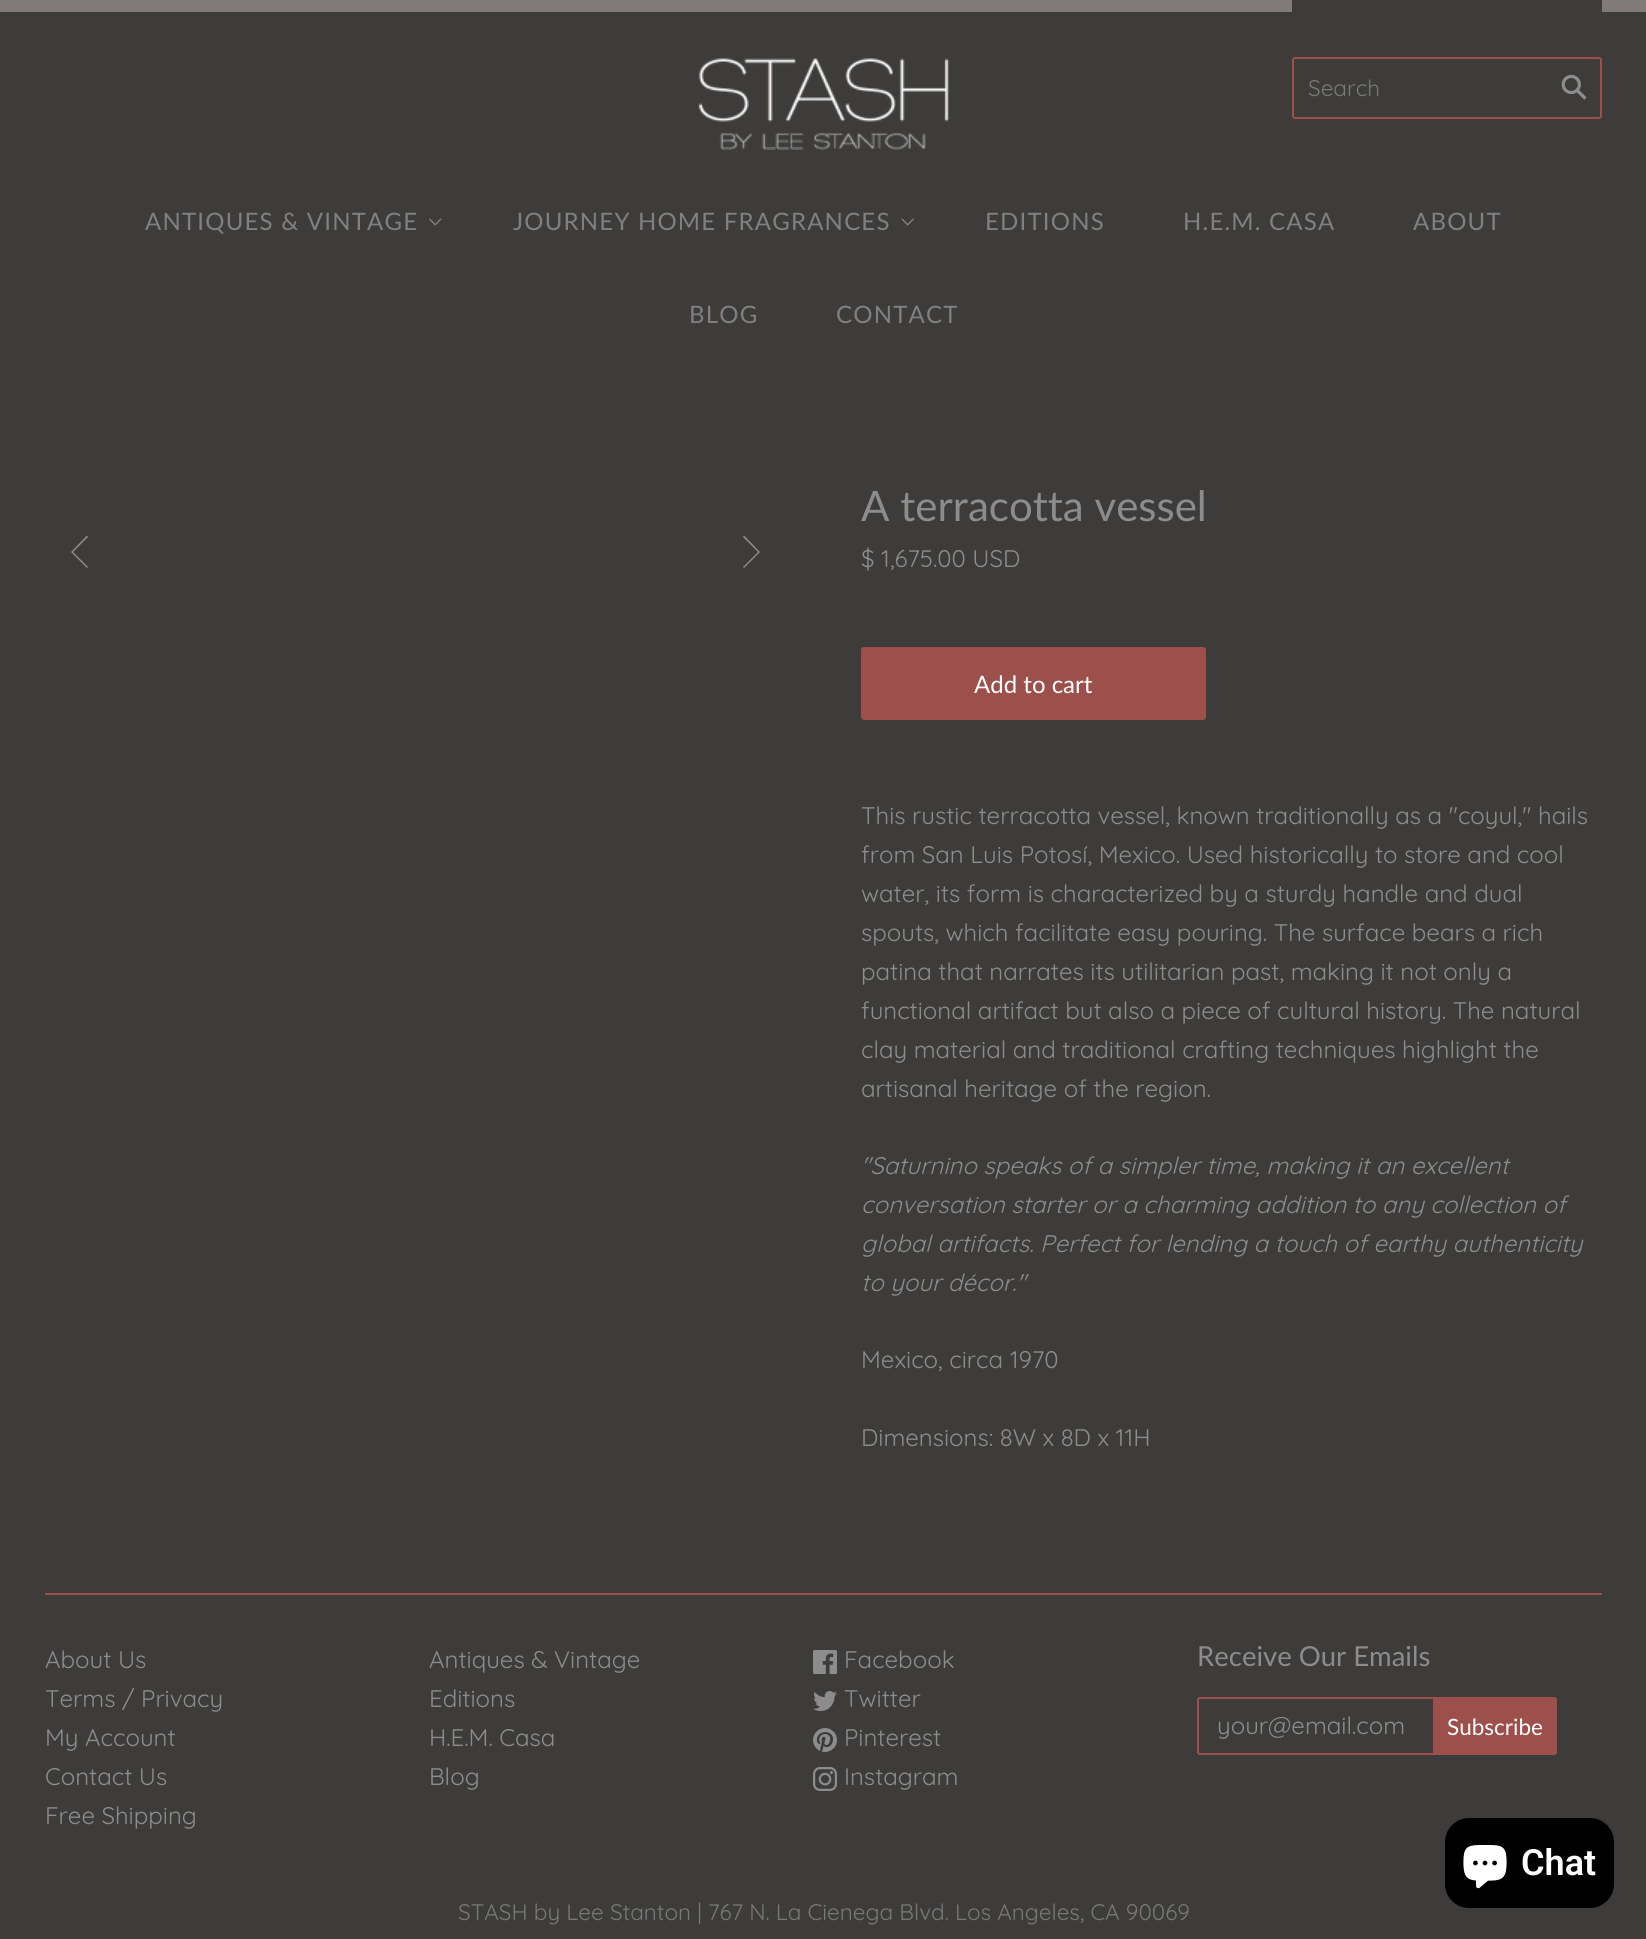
#include <cairo/cairo.h>
#include <math.h>
#include <stddef.h>

static cairo_t *cr;

static void use_color(int r, int g, int b) {
  cairo_set_source_rgb(cr, r / 255.0, g / 255.0, b / 255.0);
}

static void text(double x, double y, const char *s, const char *family, double size, int italic, int bold, int r, int g, int b) {
  cairo_select_font_face(cr, family, italic ? CAIRO_FONT_SLANT_ITALIC : CAIRO_FONT_SLANT_NORMAL,
    bold ? CAIRO_FONT_WEIGHT_BOLD : CAIRO_FONT_WEIGHT_NORMAL);
  cairo_set_font_size(cr, size);
  use_color(r, g, b);
  cairo_move_to(cr, x, y);
  cairo_show_text(cr, s);
}

static void spaced_text(double x, double y, const char *s, double letter, double word) {
  cairo_move_to(cr, x, y);
  while (*s) {
    char ch[5] = {0};
    int n = 0;
    do ch[n++] = *s++; while ((*s & 0xC0) == 0x80);
    cairo_show_text(cr, ch);
    cairo_rel_move_to(cr, letter + word * (*ch == ' '), 0);
  }
}

static void box(double x, double y, double w, double h, int r, int g, int b) {
  use_color(r, g, b);
  cairo_rectangle(cr, x, y, w, h);
  cairo_fill(cr);
}

static void round_rect(double x, double y, double w, double h, double r) {
  cairo_new_sub_path(cr);
  cairo_arc(cr, x + w - r, y + h - r, r, 0, M_PI / 2);
  cairo_arc(cr, x + r, y + h - r, r, M_PI / 2, M_PI);
  cairo_arc(cr, x + r, y + r, r, M_PI, 1.5 * M_PI);
  cairo_arc(cr, x + w - r, y + r, r, 1.5 * M_PI, 2 * M_PI);
  cairo_close_path(cr);
}

static void picture(const char *path, double x, double y, double w, double h) {
  cairo_surface_t *image = cairo_image_surface_create_from_png(path);
  cairo_save(cr);
  cairo_set_source_surface(cr, image, x, y);
  cairo_rectangle(cr, x, y, w, h);
  cairo_fill(cr);
  cairo_restore(cr);
  cairo_surface_destroy(image);
}

static void draw(void) {
  use_color(61, 60, 59);
  cairo_paint(cr);
  box(0, 0, 1646, 12, 129, 122, 122);
  box(1292, 0, 310, 12, 61, 60, 59);
  picture("img_01.png", 698, 58, 252, 92);
  round_rect(1293, 58, 308, 60, 2);
  use_color(157, 79, 75);
  cairo_stroke(cr);
  picture("img_02.png", 1561, 74, 26, 26);
  picture("img_03.png", 429, 218, 13, 8);
  picture("img_04.png", 901, 218, 13, 8);
  use_color(140, 140, 140);
  cairo_new_path(cr);
  cairo_move_to(cr, 71.5, 551.5);
  cairo_line_to(cr, 71, 552);
  cairo_line_to(cr, 87, 568);
  cairo_line_to(cr, 88, 567);
  cairo_line_to(cr, 72.5, 551.5);
  cairo_line_to(cr, 72.5, 552.5);
  cairo_line_to(cr, 88, 537);
  cairo_line_to(cr, 87, 535.5);
  cairo_close_path(cr);
  cairo_fill(cr);
  cairo_new_path(cr);
  cairo_move_to(cr, 759.5, 551.5);
  cairo_line_to(cr, 760, 552);
  cairo_line_to(cr, 744, 568);
  cairo_line_to(cr, 743, 567);
  cairo_line_to(cr, 758.5, 551.5);
  cairo_line_to(cr, 758.5, 552.5);
  cairo_line_to(cr, 743, 537);
  cairo_line_to(cr, 744, 535.5);
  cairo_close_path(cr);
  cairo_fill(cr);
  use_color(157, 79, 75);
  round_rect(861, 647, 345, 73, 3);
  cairo_fill(cr);
  box(45, 1593, 1557, 2, 157, 79, 75);
  picture("img_05.png", 813, 1650, 24, 24);
  picture("img_06.png", 813, 1691, 24, 20);
  picture("img_07.png", 813, 1728, 24, 24);
  picture("img_08.png", 813, 1767, 24, 24);
  round_rect(1198, 1698, 358, 56, 2);
  cairo_stroke(cr);
  cairo_new_path(cr);
  cairo_move_to(cr, 1433, 1697);
  cairo_line_to(cr, 1554, 1697);
  cairo_curve_to(cr, 1555.5, 1697, 1557, 1698.5, 1557, 1700);
  cairo_line_to(cr, 1557, 1752);
  cairo_curve_to(cr, 1557, 1753.5, 1555.5, 1755, 1554, 1755);
  cairo_line_to(cr, 1433, 1755);
  cairo_close_path(cr);
  cairo_fill(cr);
  use_color(0, 0, 0);
  round_rect(1445, 1818, 169, 90, 24);
  cairo_fill(cr);
  picture("img_09.png", 1463, 1845, 44, 44);
  text(1308, 96, "Search", "Quicksand", 22.5, 0, 0, 120, 120, 119);
  cairo_select_font_face(cr, "Lato", CAIRO_FONT_SLANT_NORMAL, CAIRO_FONT_WEIGHT_NORMAL);
  cairo_set_font_size(cr, 24);
  use_color(128, 128, 128);
  spaced_text(145, 230, "ANTIQUES & VINTAGE", 1.2, 0);
  spaced_text(513, 230, "JOURNEY HOME FRAGRANCES", 1.2, 0);
  spaced_text(985, 230, "EDITIONS", 1.2, 0);
  spaced_text(1183, 230, "H.E.M. CASA", 1.2, 0);
  spaced_text(1413, 230, "ABOUT", 1.2, 0);
  spaced_text(689, 323, "BLOG", 1.2, 0);
  spaced_text(836, 323, "CONTACT", 1.2, 0);
  text(861, 521, "A terracotta vessel", "Lato", 42, 0, 0, 140, 140, 140);
  text(861, 567, "$ 1,675.00 USD", "Quicksand", 24, 0, 0, 140, 140, 140);
  text(974, 693, "Add to cart", "Lato", 24, 0, 0, 255, 255, 255);
  text(861, 824, "This rustic terracotta vessel, known traditionally as a \"coyul,\" hails", "Quicksand", 24, 0, 0, 140, 140, 140);
  text(861, 863, "from San Luis Potosí, Mexico. Used historically to store and cool", "Quicksand", 24, 0, 0, 140, 140, 140);
  text(861, 902, "water, its form is characterized by a sturdy handle and dual", "Quicksand", 24, 0, 0, 140, 140, 140);
  text(861, 941, "spouts, which facilitate easy pouring. The surface bears a rich", "Quicksand", 24, 0, 0, 140, 140, 140);
  text(861, 980, "patina that narrates its utilitarian past, making it not only a", "Quicksand", 24, 0, 0, 140, 140, 140);
  text(861, 1019, "functional artifact but also a piece of cultural history. The natural", "Quicksand", 24, 0, 0, 140, 140, 140);
  text(861, 1058, "clay material and traditional crafting techniques highlight the", "Quicksand", 24, 0, 0, 140, 140, 140);
  text(861, 1097, "artisanal heritage of the region.", "Quicksand", 24, 0, 0, 140, 140, 140);
  text(861, 1174, "\"Saturnino speaks of a simpler time, making it an excellent", "Quicksand", 24, 1, 0, 140, 140, 140);
  text(861, 1213, "conversation starter or a charming addition to any collection of", "Quicksand", 24, 1, 0, 140, 140, 140);
  text(861, 1252, "global artifacts. Perfect for lending a touch of earthy authenticity", "Quicksand", 24, 1, 0, 140, 140, 140);
  text(861, 1291, "to your décor.\"", "Quicksand", 24, 1, 0, 140, 140, 140);
  text(861, 1368, "Mexico, circa 1970", "Quicksand", 24, 0, 0, 140, 140, 140);
  text(861, 1446, "Dimensions: 8W x 8D x 11H", "Quicksand", 24, 0, 0, 140, 140, 140);
  text(45, 1668, "About Us", "Quicksand", 24, 0, 0, 140, 140, 140);
  text(45, 1707, "Terms / Privacy", "Quicksand", 24, 0, 0, 140, 140, 140);
  text(45, 1746, "My Account", "Quicksand", 24, 0, 0, 140, 140, 140);
  text(45, 1785, "Contact Us", "Quicksand", 24, 0, 0, 140, 140, 140);
  text(45, 1824, "Free Shipping", "Quicksand", 24, 0, 0, 140, 140, 140);
  text(429, 1668, "Antiques & Vintage", "Quicksand", 24, 0, 0, 140, 140, 140);
  text(429, 1707, "Editions", "Quicksand", 24, 0, 0, 140, 140, 140);
  text(429, 1746, "H.E.M. Casa", "Quicksand", 24, 0, 0, 140, 140, 140);
  text(429, 1785, "Blog", "Quicksand", 24, 0, 0, 140, 140, 140);
  text(844, 1668, "Facebook", "Quicksand", 24, 0, 0, 140, 140, 140);
  text(844, 1707, "Twitter", "Quicksand", 24, 0, 0, 140, 140, 140);
  text(844, 1746, "Pinterest", "Quicksand", 24, 0, 0, 140, 140, 140);
  text(844, 1785, "Instagram", "Quicksand", 24, 0, 0, 140, 140, 140);
  text(1197, 1666, "Receive Our Emails", "Lato", 27.5, 0, 0, 140, 140, 140);
  text(1217, 1734, "your@email.com", "Quicksand", 24, 0, 0, 140, 140, 140);
  text(1447, 1735, "Subscribe", "Lato", 22.5, 0, 0, 255, 255, 255);
  text(458, 1920, "STASH by Lee Stanton | 767 N. La Cienega Blvd. Los Angeles, CA 90069", "Quicksand", 22.5, 0, 0, 120, 120, 119);
  text(1521, 1875, "Chat", "Roboto SemiBold", 36, 0, 0, 255, 255, 255);
}

int main(void) {
  cairo_surface_t *surface = cairo_image_surface_create(CAIRO_FORMAT_RGB24, 1646, 1939);
  cr = cairo_create(surface);
  cairo_font_options_t *options = cairo_font_options_create();
  cairo_font_options_set_hint_metrics(options, CAIRO_HINT_METRICS_OFF);
  cairo_font_options_set_hint_style(options, CAIRO_HINT_STYLE_NONE);
  cairo_set_font_options(cr, options);
  cairo_set_miter_limit(cr, 4);
  draw();
  cairo_surface_write_to_png(surface, "out.png");
  cairo_font_options_destroy(options);
  cairo_destroy(cr);
  cairo_surface_destroy(surface);
  return 0;
}
